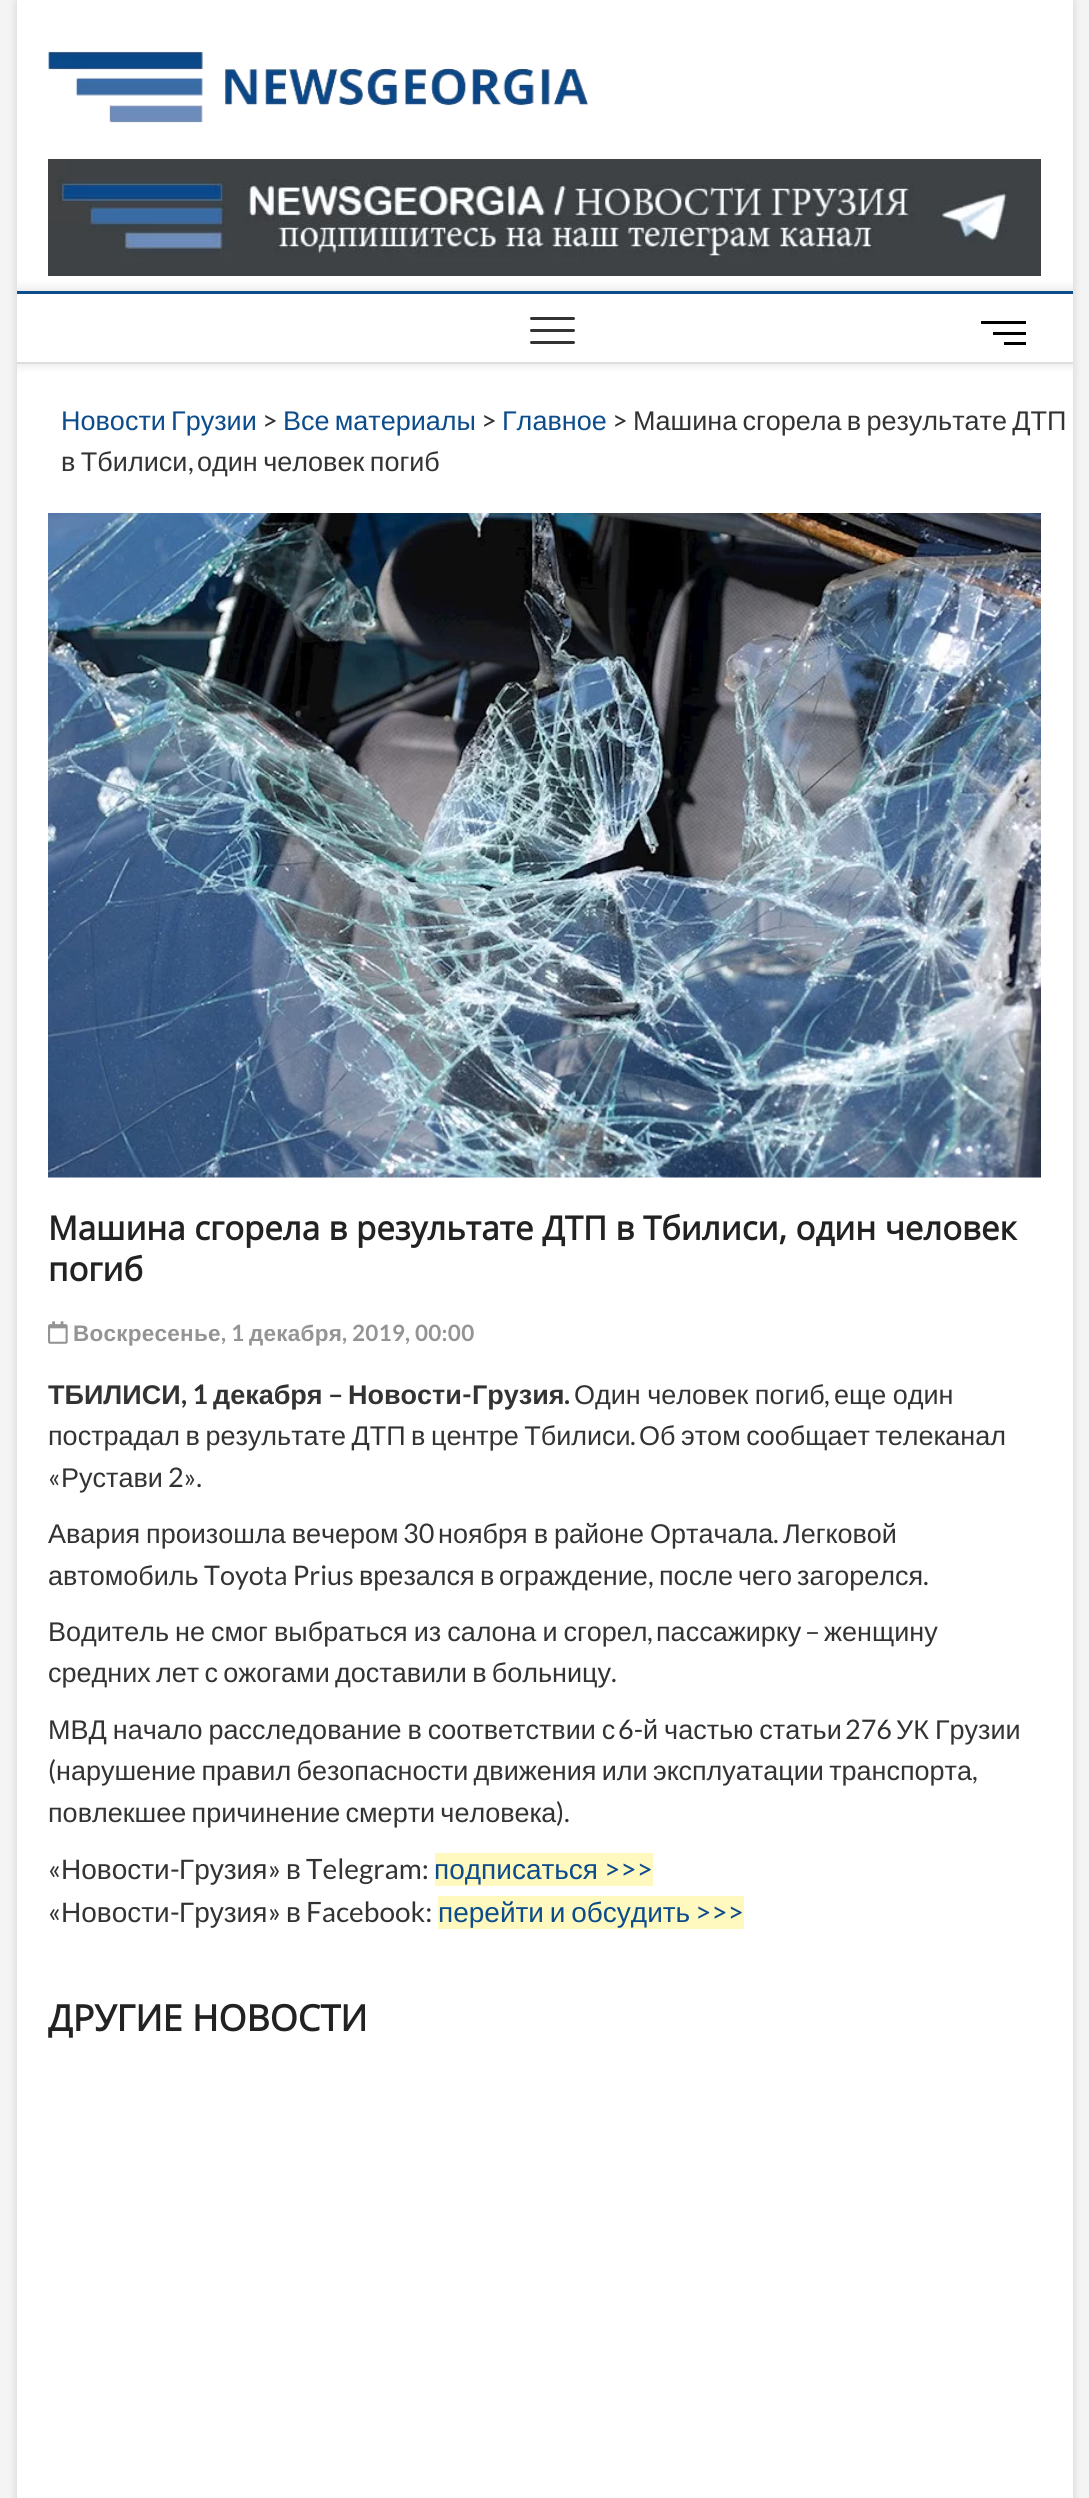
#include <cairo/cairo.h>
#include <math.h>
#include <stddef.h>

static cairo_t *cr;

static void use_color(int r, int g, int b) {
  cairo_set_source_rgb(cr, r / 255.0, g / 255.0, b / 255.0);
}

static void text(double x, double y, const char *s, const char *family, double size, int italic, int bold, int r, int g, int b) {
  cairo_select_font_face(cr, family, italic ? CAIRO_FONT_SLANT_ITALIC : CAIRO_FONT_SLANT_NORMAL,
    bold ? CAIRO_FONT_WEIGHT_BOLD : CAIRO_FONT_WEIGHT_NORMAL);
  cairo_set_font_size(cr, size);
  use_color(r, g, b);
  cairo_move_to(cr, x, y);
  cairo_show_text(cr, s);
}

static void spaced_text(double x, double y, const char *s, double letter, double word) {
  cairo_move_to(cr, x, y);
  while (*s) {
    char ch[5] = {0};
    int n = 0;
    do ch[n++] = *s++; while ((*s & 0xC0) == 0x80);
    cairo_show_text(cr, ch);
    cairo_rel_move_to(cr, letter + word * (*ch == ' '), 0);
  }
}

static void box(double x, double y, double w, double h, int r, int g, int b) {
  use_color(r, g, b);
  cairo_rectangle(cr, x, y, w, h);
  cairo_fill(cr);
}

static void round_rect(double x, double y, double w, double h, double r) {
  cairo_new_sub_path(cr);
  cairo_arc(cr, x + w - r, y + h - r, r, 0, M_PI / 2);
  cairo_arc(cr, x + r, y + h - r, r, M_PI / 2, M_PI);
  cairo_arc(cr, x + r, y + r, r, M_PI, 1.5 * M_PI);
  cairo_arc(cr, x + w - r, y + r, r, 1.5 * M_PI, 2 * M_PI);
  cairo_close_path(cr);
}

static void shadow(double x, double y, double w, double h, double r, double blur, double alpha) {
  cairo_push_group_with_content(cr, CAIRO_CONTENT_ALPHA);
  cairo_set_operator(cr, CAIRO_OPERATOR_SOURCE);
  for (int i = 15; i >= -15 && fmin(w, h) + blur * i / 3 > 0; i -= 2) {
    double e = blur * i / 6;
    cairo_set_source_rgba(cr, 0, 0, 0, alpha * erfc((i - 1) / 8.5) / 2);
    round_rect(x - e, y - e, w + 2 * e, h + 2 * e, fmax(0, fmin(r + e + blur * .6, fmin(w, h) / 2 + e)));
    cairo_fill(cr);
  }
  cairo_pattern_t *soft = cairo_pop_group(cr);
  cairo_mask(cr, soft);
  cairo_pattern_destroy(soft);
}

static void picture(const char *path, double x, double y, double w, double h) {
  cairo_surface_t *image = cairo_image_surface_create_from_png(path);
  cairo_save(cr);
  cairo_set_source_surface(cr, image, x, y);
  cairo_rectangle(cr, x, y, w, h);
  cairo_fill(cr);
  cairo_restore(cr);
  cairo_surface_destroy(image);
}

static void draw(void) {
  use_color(244, 244, 244);
  cairo_paint(cr);
  use_color(0, 0, 0);
  shadow(17, 2, 1056, 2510, 0, 4.5, 0.15);
  box(17, 0, 1056, 2498, 255, 255, 255);
  picture("img_01.png", 48, 51, 540, 72);
  picture("img_02.png", 48, 159, 993, 117);
  cairo_save(cr);
  cairo_rectangle(cr, 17, 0, 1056, 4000);
  cairo_clip(cr);
  use_color(0, 0, 0);
  shadow(17, 291, 1056, 72, 0, 6, 0.15);
  cairo_restore(cr);
  box(17, 294, 1056, 68, 255, 255, 255);
  box(17, 291, 1056, 3, 12, 76, 138);
  box(17, 362, 1056, 2, 221, 221, 221);
  use_color(51, 51, 51);
  round_rect(530, 329, 45, 3, 1.5);
  cairo_fill(cr);
  round_rect(530, 317, 45, 3, 1.5);
  cairo_fill(cr);
  round_rect(530, 341, 45, 3, 1.5);
  cairo_fill(cr);
  box(993, 332, 33, 3, 0, 0, 0);
  box(981, 321, 45, 3, 0, 0, 0);
  box(1004, 342, 22, 3, 0, 0, 0);
  picture("img_03.png", 48, 513, 993, 665);
  picture("img_04.png", 48, 1321, 20, 23);
  box(435, 1853, 218, 33, 255, 249, 192);
  box(438, 1896, 306, 33, 255, 249, 192);
  cairo_select_font_face(cr, "Liberation Sans", CAIRO_FONT_SLANT_NORMAL, CAIRO_FONT_WEIGHT_NORMAL);
  cairo_set_font_size(cr, 27);
  use_color(12, 76, 138);
  spaced_text(61, 430, "Новости Грузии", 0, -2.25);
  text(262, 430, ">", "Lato", 27, 0, 0, 51, 51, 51);
  cairo_select_font_face(cr, "Liberation Sans", CAIRO_FONT_SLANT_NORMAL, CAIRO_FONT_WEIGHT_NORMAL);
  use_color(12, 76, 138);
  spaced_text(283, 430, "Все материалы", 0, -2.25);
  text(481, 430, ">", "Lato", 27, 0, 0, 51, 51, 51);
  text(502, 430, "Главное", "Liberation Sans", 27, 0, 0, 12, 76, 138);
  text(612, 430, ">", "Lato", 27, 0, 0, 51, 51, 51);
  cairo_select_font_face(cr, "Liberation Sans", CAIRO_FONT_SLANT_NORMAL, CAIRO_FONT_WEIGHT_NORMAL);
  spaced_text(633, 430, "Машина сгорела в результате ДТП", 0, -2.25);
  spaced_text(61, 471, "в Тбилиси", 0, -2);
  text(188, 471, ",", "Lato", 27, 0, 0, 51, 51, 51);
  cairo_select_font_face(cr, "Liberation Sans", CAIRO_FONT_SLANT_NORMAL, CAIRO_FONT_WEIGHT_NORMAL);
  spaced_text(197, 471, "один человек погиб", 0, -2);
  text(48, 1240, "Машина сгорела в результате ДТП в Тбилиси, один человек", "Open Sans", 33, 0, 1, 34, 34, 34);
  text(48, 1281, "погиб", "Open Sans", 33, 0, 1, 34, 34, 34);
  cairo_select_font_face(cr, "Liberation Sans", CAIRO_FONT_SLANT_NORMAL, CAIRO_FONT_WEIGHT_BOLD);
  cairo_set_font_size(cr, 22.5);
  use_color(148, 148, 148);
  spaced_text(73, 1341, "Воскресенье", 0.25, 0);
  cairo_select_font_face(cr, "Lato", CAIRO_FONT_SLANT_NORMAL, CAIRO_FONT_WEIGHT_BOLD);
  spaced_text(221, 1341, ", 1", 0.25, 0);
  cairo_select_font_face(cr, "Liberation Sans", CAIRO_FONT_SLANT_NORMAL, CAIRO_FONT_WEIGHT_BOLD);
  spaced_text(249, 1341, "декабря", 0.25, 0);
  cairo_select_font_face(cr, "Lato", CAIRO_FONT_SLANT_NORMAL, CAIRO_FONT_WEIGHT_BOLD);
  spaced_text(342, 1341, ", 2019, 00:00", 0.25, 0);
  text(48, 1404, "ТБИЛИСИ", "Liberation Sans", 27, 0, 1, 51, 51, 51);
  text(181, 1404, ", 1", "Lato", 27, 0, 1, 51, 51, 51);
  text(213, 1404, "декабря", "Liberation Sans", 27, 0, 1, 51, 51, 51);
  text(328, 1404, "–", "Lato", 27, 0, 1, 51, 51, 51);
  text(348, 1404, "Новости", "Liberation Sans", 27, 0, 1, 51, 51, 51);
  text(462, 1404, "-", "Lato", 27, 0, 1, 51, 51, 51);
  text(472, 1404, "Грузия", "Liberation Sans", 27, 0, 1, 51, 51, 51);
  cairo_select_font_face(cr, "Liberation Sans", CAIRO_FONT_SLANT_NORMAL, CAIRO_FONT_WEIGHT_NORMAL);
  spaced_text(574, 1404, "Один человек погиб", 0, -1);
  spaced_text(834, 1404, "еще один", 0, -1);
  text(564, 1404, ".", "Lato", 27, 0, 1, 51, 51, 51);
  text(824, 1404, ",", "Lato", 27, 0, 0, 51, 51, 51);
  cairo_select_font_face(cr, "Liberation Sans", CAIRO_FONT_SLANT_NORMAL, CAIRO_FONT_WEIGHT_NORMAL);
  spaced_text(48, 1445, "пострадал в результате ДТП в центре Тбилиси", 0, -2);
  text(630, 1445, ".", "Lato", 27, 0, 0, 51, 51, 51);
  cairo_select_font_face(cr, "Liberation Sans", CAIRO_FONT_SLANT_NORMAL, CAIRO_FONT_WEIGHT_NORMAL);
  spaced_text(639, 1445, "Об этом сообщает телеканал", 0, -2);
  text(48, 1487, "«", "Lato", 27, 0, 0, 51, 51, 51);
  text(61, 1487, "Рустави", "Liberation Sans", 27, 0, 0, 51, 51, 51);
  text(168, 1487, "2».", "Lato", 27, 0, 0, 51, 51, 51);
  cairo_select_font_face(cr, "Liberation Sans", CAIRO_FONT_SLANT_NORMAL, CAIRO_FONT_WEIGHT_NORMAL);
  spaced_text(48, 1543, "Авария произошла вечером", 0, -1.5);
  text(403, 1543, "30", "Lato", 27, 0, 0, 51, 51, 51);
  cairo_select_font_face(cr, "Liberation Sans", CAIRO_FONT_SLANT_NORMAL, CAIRO_FONT_WEIGHT_NORMAL);
  spaced_text(438, 1543, "ноября в районе Ортачала", 0, -1.5);
  text(773, 1543, ".", "Lato", 27, 0, 0, 51, 51, 51);
  text(783, 1543, "Легковой", "Liberation Sans", 27, 0, 0, 51, 51, 51);
  text(48, 1585, "автомобиль", "Liberation Sans", 27, 0, 0, 51, 51, 51);
  text(204, 1585, "Toyota Prius", "Lato", 27, 0, 0, 51, 51, 51);
  text(359, 1585, "врезался", "Liberation Sans", 27, 0, 0, 51, 51, 51);
  text(480, 1585, "в", "Liberation Sans", 27, 0, 0, 51, 51, 51);
  text(499, 1585, "ограждение", "Liberation Sans", 27, 0, 0, 51, 51, 51);
  text(648, 1585, ",", "Lato", 27, 0, 0, 51, 51, 51);
  text(659, 1585, "после", "Liberation Sans", 27, 0, 0, 51, 51, 51);
  text(738, 1585, "чего", "Liberation Sans", 27, 0, 0, 51, 51, 51);
  text(797, 1585, "загорелся", "Liberation Sans", 27, 0, 0, 51, 51, 51);
  text(923, 1585, ".", "Lato", 27, 0, 0, 51, 51, 51);
  cairo_select_font_face(cr, "Liberation Sans", CAIRO_FONT_SLANT_NORMAL, CAIRO_FONT_WEIGHT_NORMAL);
  spaced_text(48, 1641, "Водитель не смог выбраться из салона и сгорел", 0, -1.5);
  text(656, 1641, "пассажирку", "Liberation Sans", 27, 0, 0, 51, 51, 51);
  text(805, 1641, "–", "Lato", 27, 0, 0, 51, 51, 51);
  text(824, 1641, "женщину", "Liberation Sans", 27, 0, 0, 51, 51, 51);
  text(647, 1641, ",", "Lato", 27, 0, 0, 51, 51, 51);
  cairo_select_font_face(cr, "Liberation Sans", CAIRO_FONT_SLANT_NORMAL, CAIRO_FONT_WEIGHT_NORMAL);
  spaced_text(48, 1682, "средних лет с ожогами доставили в больницу", 0, -2.25);
  text(611, 1682, ".", "Lato", 27, 0, 0, 51, 51, 51);
  cairo_select_font_face(cr, "Liberation Sans", CAIRO_FONT_SLANT_NORMAL, CAIRO_FONT_WEIGHT_NORMAL);
  spaced_text(48, 1739, "МВД начало расследование в соответствии с", 0, -1.5);
  text(618, 1739, "6-", "Lato", 27, 0, 0, 51, 51, 51);
  cairo_select_font_face(cr, "Liberation Sans", CAIRO_FONT_SLANT_NORMAL, CAIRO_FONT_WEIGHT_NORMAL);
  spaced_text(643, 1739, "й частью статьи", 0, -1.5);
  text(845, 1739, "276", "Lato", 27, 0, 0, 51, 51, 51);
  cairo_select_font_face(cr, "Liberation Sans", CAIRO_FONT_SLANT_NORMAL, CAIRO_FONT_WEIGHT_NORMAL);
  spaced_text(896, 1739, "УК Грузии", 0, -1.5);
  text(48, 1780, "(", "Lato", 27, 0, 0, 51, 51, 51);
  cairo_select_font_face(cr, "Liberation Sans", CAIRO_FONT_SLANT_NORMAL, CAIRO_FONT_WEIGHT_NORMAL);
  spaced_text(56, 1780, "нарушение правил безопасности движения или эксплуатации транспорта", 0, -2.25);
  text(972, 1780, ",", "Lato", 27, 0, 0, 51, 51, 51);
  cairo_select_font_face(cr, "Liberation Sans", CAIRO_FONT_SLANT_NORMAL, CAIRO_FONT_WEIGHT_NORMAL);
  spaced_text(48, 1822, "повлекшее причинение смерти человека", 0, -2.25);
  text(556, 1822, ").", "Lato", 27, 0, 0, 51, 51, 51);
  text(48, 1879, "«", "Lato", 28, 0, 0, 51, 51, 51);
  text(61, 1879, "Новости", "Liberation Sans", 28, 0, 0, 51, 51, 51);
  text(170, 1879, "-", "Lato", 28, 0, 0, 51, 51, 51);
  text(179, 1879, "Грузия", "Liberation Sans", 28, 0, 0, 51, 51, 51);
  text(268, 1879, "»", "Lato", 28, 0, 0, 51, 51, 51);
  text(286, 1879, "в", "Liberation Sans", 28, 0, 0, 51, 51, 51);
  text(306, 1879, "Telegram:", "Lato", 28, 0, 0, 51, 51, 51);
  text(434, 1879, "подписаться", "Liberation Sans", 28, 0, 0, 12, 76, 138);
  text(604, 1879, ">>>", "Lato", 28, 0, 0, 12, 76, 138);
  text(48, 1922, "«", "Lato", 28, 0, 0, 51, 51, 51);
  text(61, 1922, "Новости", "Liberation Sans", 28, 0, 0, 51, 51, 51);
  text(170, 1922, "-", "Lato", 28, 0, 0, 51, 51, 51);
  text(179, 1922, "Грузия", "Liberation Sans", 28, 0, 0, 51, 51, 51);
  text(268, 1922, "»", "Lato", 28, 0, 0, 51, 51, 51);
  text(286, 1922, "в", "Liberation Sans", 28, 0, 0, 51, 51, 51);
  text(306, 1922, "Facebook:", "Lato", 28, 0, 0, 51, 51, 51);
  cairo_select_font_face(cr, "Liberation Sans", CAIRO_FONT_SLANT_NORMAL, CAIRO_FONT_WEIGHT_NORMAL);
  use_color(12, 76, 138);
  spaced_text(438, 1922, "перейти и обсудить", 0, -2);
  text(695, 1922, ">>>", "Lato", 28, 0, 0, 12, 76, 138);
  text(48, 2031, "ДРУГИЕ НОВОСТИ", "Open Sans", 36, 0, 1, 34, 34, 34);
}

int main(void) {
  cairo_surface_t *surface = cairo_image_surface_create(CAIRO_FORMAT_RGB24, 1089, 2498);
  cr = cairo_create(surface);
  cairo_font_options_t *options = cairo_font_options_create();
  cairo_font_options_set_hint_metrics(options, CAIRO_HINT_METRICS_OFF);
  cairo_font_options_set_hint_style(options, CAIRO_HINT_STYLE_NONE);
  cairo_set_font_options(cr, options);
  cairo_set_miter_limit(cr, 4);
  draw();
  cairo_surface_write_to_png(surface, "out.png");
  cairo_font_options_destroy(options);
  cairo_destroy(cr);
  cairo_surface_destroy(surface);
  return 0;
}
